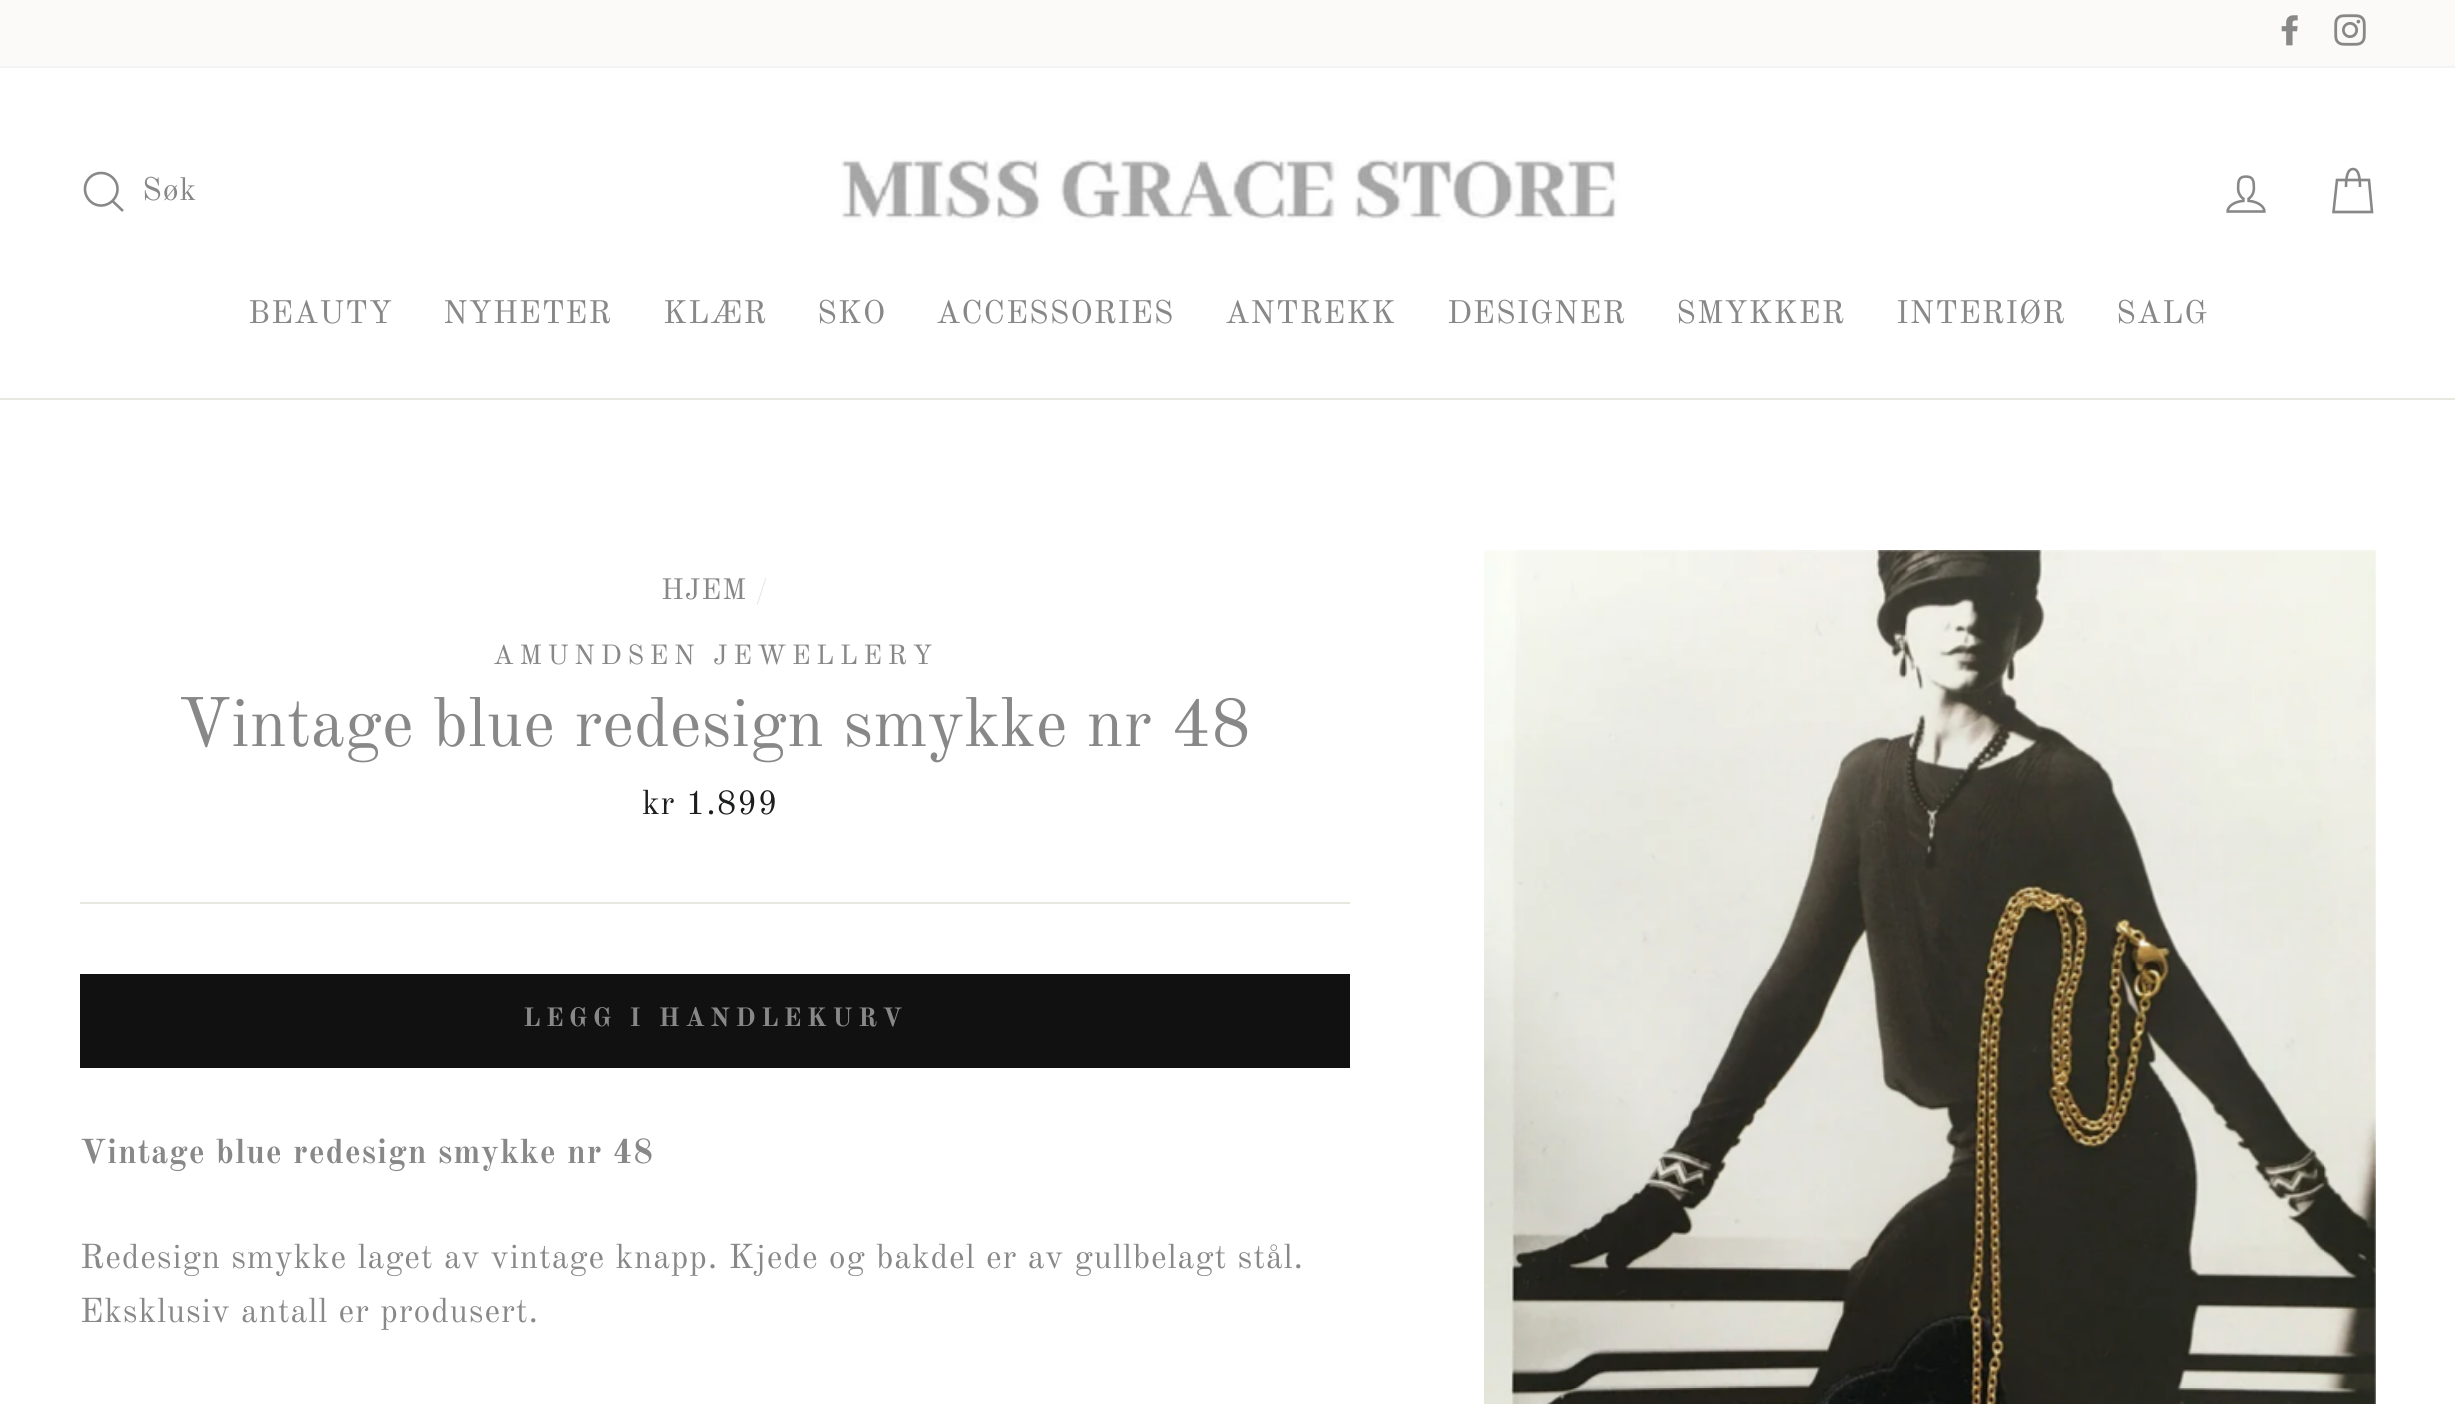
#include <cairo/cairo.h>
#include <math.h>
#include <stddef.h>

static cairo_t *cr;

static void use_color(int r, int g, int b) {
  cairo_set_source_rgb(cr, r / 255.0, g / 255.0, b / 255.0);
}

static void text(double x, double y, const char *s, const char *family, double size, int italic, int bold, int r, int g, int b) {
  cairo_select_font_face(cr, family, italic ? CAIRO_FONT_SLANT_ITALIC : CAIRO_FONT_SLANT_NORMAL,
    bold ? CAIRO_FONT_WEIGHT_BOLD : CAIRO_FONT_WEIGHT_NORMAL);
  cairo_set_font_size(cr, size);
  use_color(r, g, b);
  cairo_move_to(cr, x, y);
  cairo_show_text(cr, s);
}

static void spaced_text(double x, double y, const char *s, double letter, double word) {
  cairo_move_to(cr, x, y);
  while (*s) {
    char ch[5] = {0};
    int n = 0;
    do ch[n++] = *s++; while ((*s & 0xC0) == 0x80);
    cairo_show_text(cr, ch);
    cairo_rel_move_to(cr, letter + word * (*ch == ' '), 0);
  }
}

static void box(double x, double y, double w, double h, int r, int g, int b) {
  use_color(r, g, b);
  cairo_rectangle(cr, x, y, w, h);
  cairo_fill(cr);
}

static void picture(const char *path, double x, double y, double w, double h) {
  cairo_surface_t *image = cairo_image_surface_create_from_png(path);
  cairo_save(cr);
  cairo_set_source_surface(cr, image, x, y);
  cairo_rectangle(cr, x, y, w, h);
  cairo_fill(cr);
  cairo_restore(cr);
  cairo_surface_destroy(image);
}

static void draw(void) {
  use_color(255, 255, 255);
  cairo_paint(cr);
  box(0, 0, 2455, 66, 251, 250, 249);
  picture("img_01.png", 2281, 15, 17, 31);
  picture("img_02.png", 2334, 14, 32, 32);
  box(0, 66, 2455, 2, 243, 243, 243);
  box(0, 398, 2455, 2, 232, 232, 225);
  cairo_new_path(cr);
  cairo_move_to(cr, 117.5, 189);
  cairo_curve_to(cr, 117.5, 198, 110, 205.5, 101, 205.5);
  cairo_curve_to(cr, 92, 205.5, 85, 198, 85, 189);
  cairo_curve_to(cr, 85, 180, 92, 173, 101, 173);
  cairo_curve_to(cr, 110, 173, 117.5, 180, 117.5, 189);
  cairo_close_path(cr);
  cairo_move_to(cr, 123, 211);
  cairo_line_to(cr, 112.5, 201);
  use_color(136, 136, 136);
  cairo_set_line_width(cr, 2.6);
  cairo_stroke(cr);
  picture("img_03.png", 841, 159, 779, 64);
  picture("img_04.png", 2226, 175, 40, 38);
  cairo_new_path(cr);
  cairo_move_to(cr, 2346, 187);
  cairo_curve_to(cr, 2346, 173, 2349, 169, 2353, 169);
  cairo_curve_to(cr, 2357, 169, 2360, 173, 2360, 187);
  cairo_move_to(cr, 2337, 180);
  cairo_line_to(cr, 2369, 180);
  cairo_line_to(cr, 2372, 212);
  cairo_line_to(cr, 2333.5, 212);
  cairo_close_path(cr);
  cairo_stroke(cr);
  box(80, 902, 1270, 2, 232, 232, 225);
  box(80, 974, 1270, 94, 17, 17, 17);
  picture("img_05.png", 1484, 550, 892, 854);
  cairo_select_font_face(cr, "Old Standard TT", CAIRO_FONT_SLANT_NORMAL, CAIRO_FONT_WEIGHT_NORMAL);
  cairo_set_font_size(cr, 32);
  use_color(136, 136, 136);
  spaced_text(142, 200, "Søk", 0.85, 0);
  spaced_text(248, 323, "BEAUTY", 0.85, 0);
  spaced_text(443, 323, "NYHETER", 0.85, 0);
  spaced_text(663, 323, "KLÆR", 0.85, 0);
  spaced_text(817, 323, "SKO", 0.85, 0);
  spaced_text(936, 323, "ACCESSORIES", 0.85, 0);
  spaced_text(1225, 323, "ANTREKK", 0.85, 0);
  spaced_text(1447, 323, "DESIGNER", 0.85, 0);
  spaced_text(1676, 323, "SMYKKER", 0.85, 0);
  spaced_text(1896, 323, "INTERIØR", 0.85, 0);
  spaced_text(2116, 323, "SALG", 0.85, 0);
  cairo_set_font_size(cr, 29);
  spaced_text(661, 599, "HJEM", 0.85, 0);
  use_color(232, 232, 225);
  spaced_text(755, 599, "/", 0.85, 0);
  cairo_set_font_size(cr, 27.25);
  use_color(136, 136, 136);
  spaced_text(493, 664, "AMUNDSEN JEWELLERY", 5.4, 0);
  text(178, 746, "Vintage blue redesign smykke nr 48", "Old Standard TT", 68.75, 0, 0, 136, 136, 136);
  cairo_set_font_size(cr, 34);
  use_color(28, 29, 29);
  spaced_text(642, 814, "kr 1.899", 0.85, 0);
  cairo_select_font_face(cr, "Old Standard TT", CAIRO_FONT_SLANT_NORMAL, CAIRO_FONT_WEIGHT_BOLD);
  cairo_set_font_size(cr, 26);
  use_color(136, 136, 136);
  spaced_text(523, 1026, "LEGG I HANDLEKURV", 5.25, 0);
  cairo_set_font_size(cr, 34);
  spaced_text(80, 1163, "Vintage blue redesign smykke nr 48", 0.85, 0);
  cairo_select_font_face(cr, "Old Standard TT", CAIRO_FONT_SLANT_NORMAL, CAIRO_FONT_WEIGHT_NORMAL);
  spaced_text(80, 1268, "Redesign smykke laget av vintage knapp. Kjede og bakdel er av gullbelagt stål.", 0.85, 0);
  spaced_text(80, 1322, "Eksklusiv antall er produsert.", 0.85, 0);
}

int main(void) {
  cairo_surface_t *surface = cairo_image_surface_create(CAIRO_FORMAT_RGB24, 2455, 1404);
  cr = cairo_create(surface);
  cairo_font_options_t *options = cairo_font_options_create();
  cairo_font_options_set_hint_metrics(options, CAIRO_HINT_METRICS_OFF);
  cairo_font_options_set_hint_style(options, CAIRO_HINT_STYLE_NONE);
  cairo_set_font_options(cr, options);
  cairo_set_miter_limit(cr, 4);
  draw();
  cairo_surface_write_to_png(surface, "out.png");
  cairo_font_options_destroy(options);
  cairo_destroy(cr);
  cairo_surface_destroy(surface);
  return 0;
}
